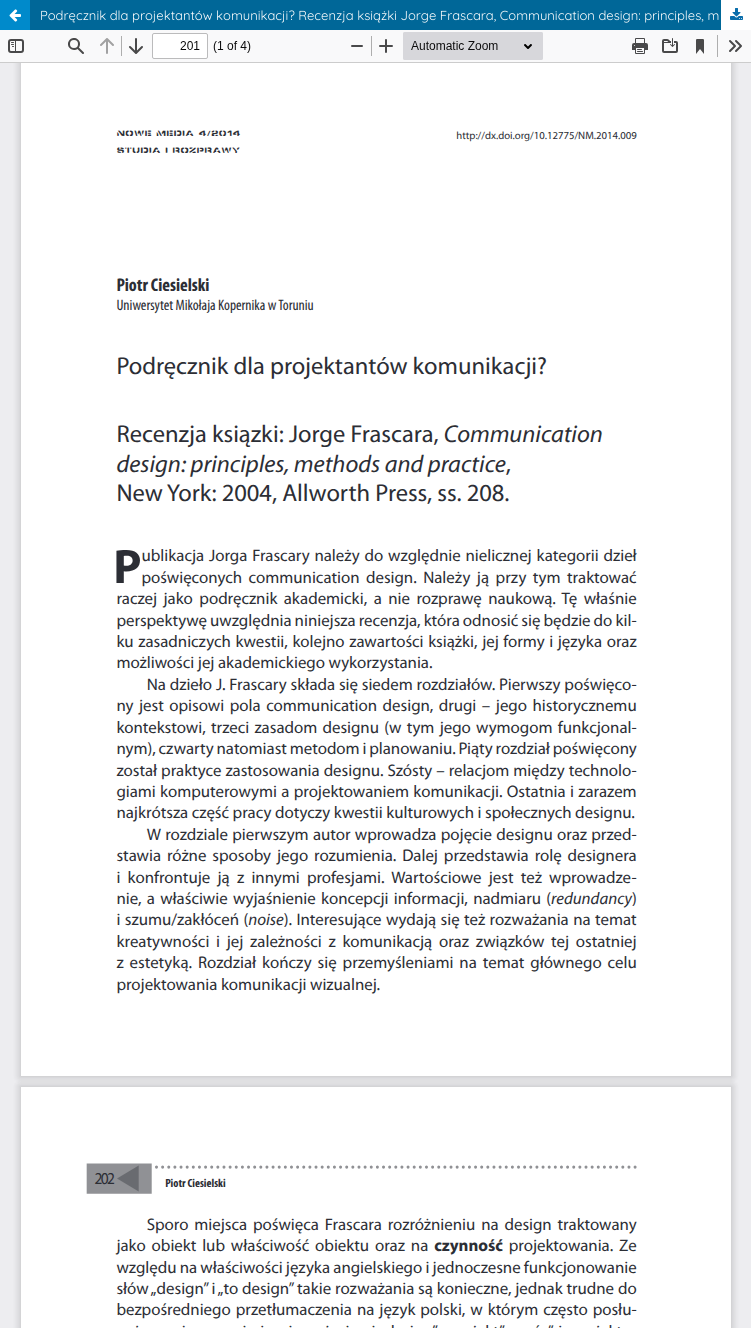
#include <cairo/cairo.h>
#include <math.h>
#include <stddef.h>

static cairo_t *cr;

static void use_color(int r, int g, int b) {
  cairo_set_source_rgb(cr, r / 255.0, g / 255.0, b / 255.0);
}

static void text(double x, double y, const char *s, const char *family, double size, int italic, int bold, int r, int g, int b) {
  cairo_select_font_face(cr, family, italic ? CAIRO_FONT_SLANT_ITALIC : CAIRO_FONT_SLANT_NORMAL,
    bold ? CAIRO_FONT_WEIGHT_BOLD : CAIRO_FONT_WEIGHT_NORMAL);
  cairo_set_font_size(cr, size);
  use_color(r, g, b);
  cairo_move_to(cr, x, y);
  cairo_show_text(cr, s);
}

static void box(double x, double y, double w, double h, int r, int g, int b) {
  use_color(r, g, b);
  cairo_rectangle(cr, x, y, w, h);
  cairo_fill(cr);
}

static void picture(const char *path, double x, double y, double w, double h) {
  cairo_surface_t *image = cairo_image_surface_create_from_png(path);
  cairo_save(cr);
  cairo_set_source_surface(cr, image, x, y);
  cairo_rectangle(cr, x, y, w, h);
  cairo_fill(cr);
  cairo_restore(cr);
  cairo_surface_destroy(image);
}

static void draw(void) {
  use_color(255, 255, 255);
  cairo_paint(cr);
  box(30, 0, 691, 30, 0, 103, 152);
  box(0, 0, 30, 30, 0, 138, 203);
  picture("img_01.png", 9, 9, 12, 13);
  picture("img_02.png", 730, 8, 13, 12);
  picture("img_03.png", 0, 30, 751, 1298);
  text(40, 20, "Podręcznik dla projektantów komunikacji? Recenzja książki Jorge Frascara, Communication design: principles, m", "Quicksand", 13.02, 0, 0, 255, 255, 255);
}

int main(void) {
  cairo_surface_t *surface = cairo_image_surface_create(CAIRO_FORMAT_RGB24, 751, 1328);
  cr = cairo_create(surface);
  cairo_font_options_t *options = cairo_font_options_create();
  cairo_font_options_set_hint_metrics(options, CAIRO_HINT_METRICS_OFF);
  cairo_font_options_set_hint_style(options, CAIRO_HINT_STYLE_NONE);
  cairo_set_font_options(cr, options);
  cairo_set_miter_limit(cr, 4);
  draw();
  cairo_surface_write_to_png(surface, "out.png");
  cairo_font_options_destroy(options);
  cairo_destroy(cr);
  cairo_surface_destroy(surface);
  return 0;
}
